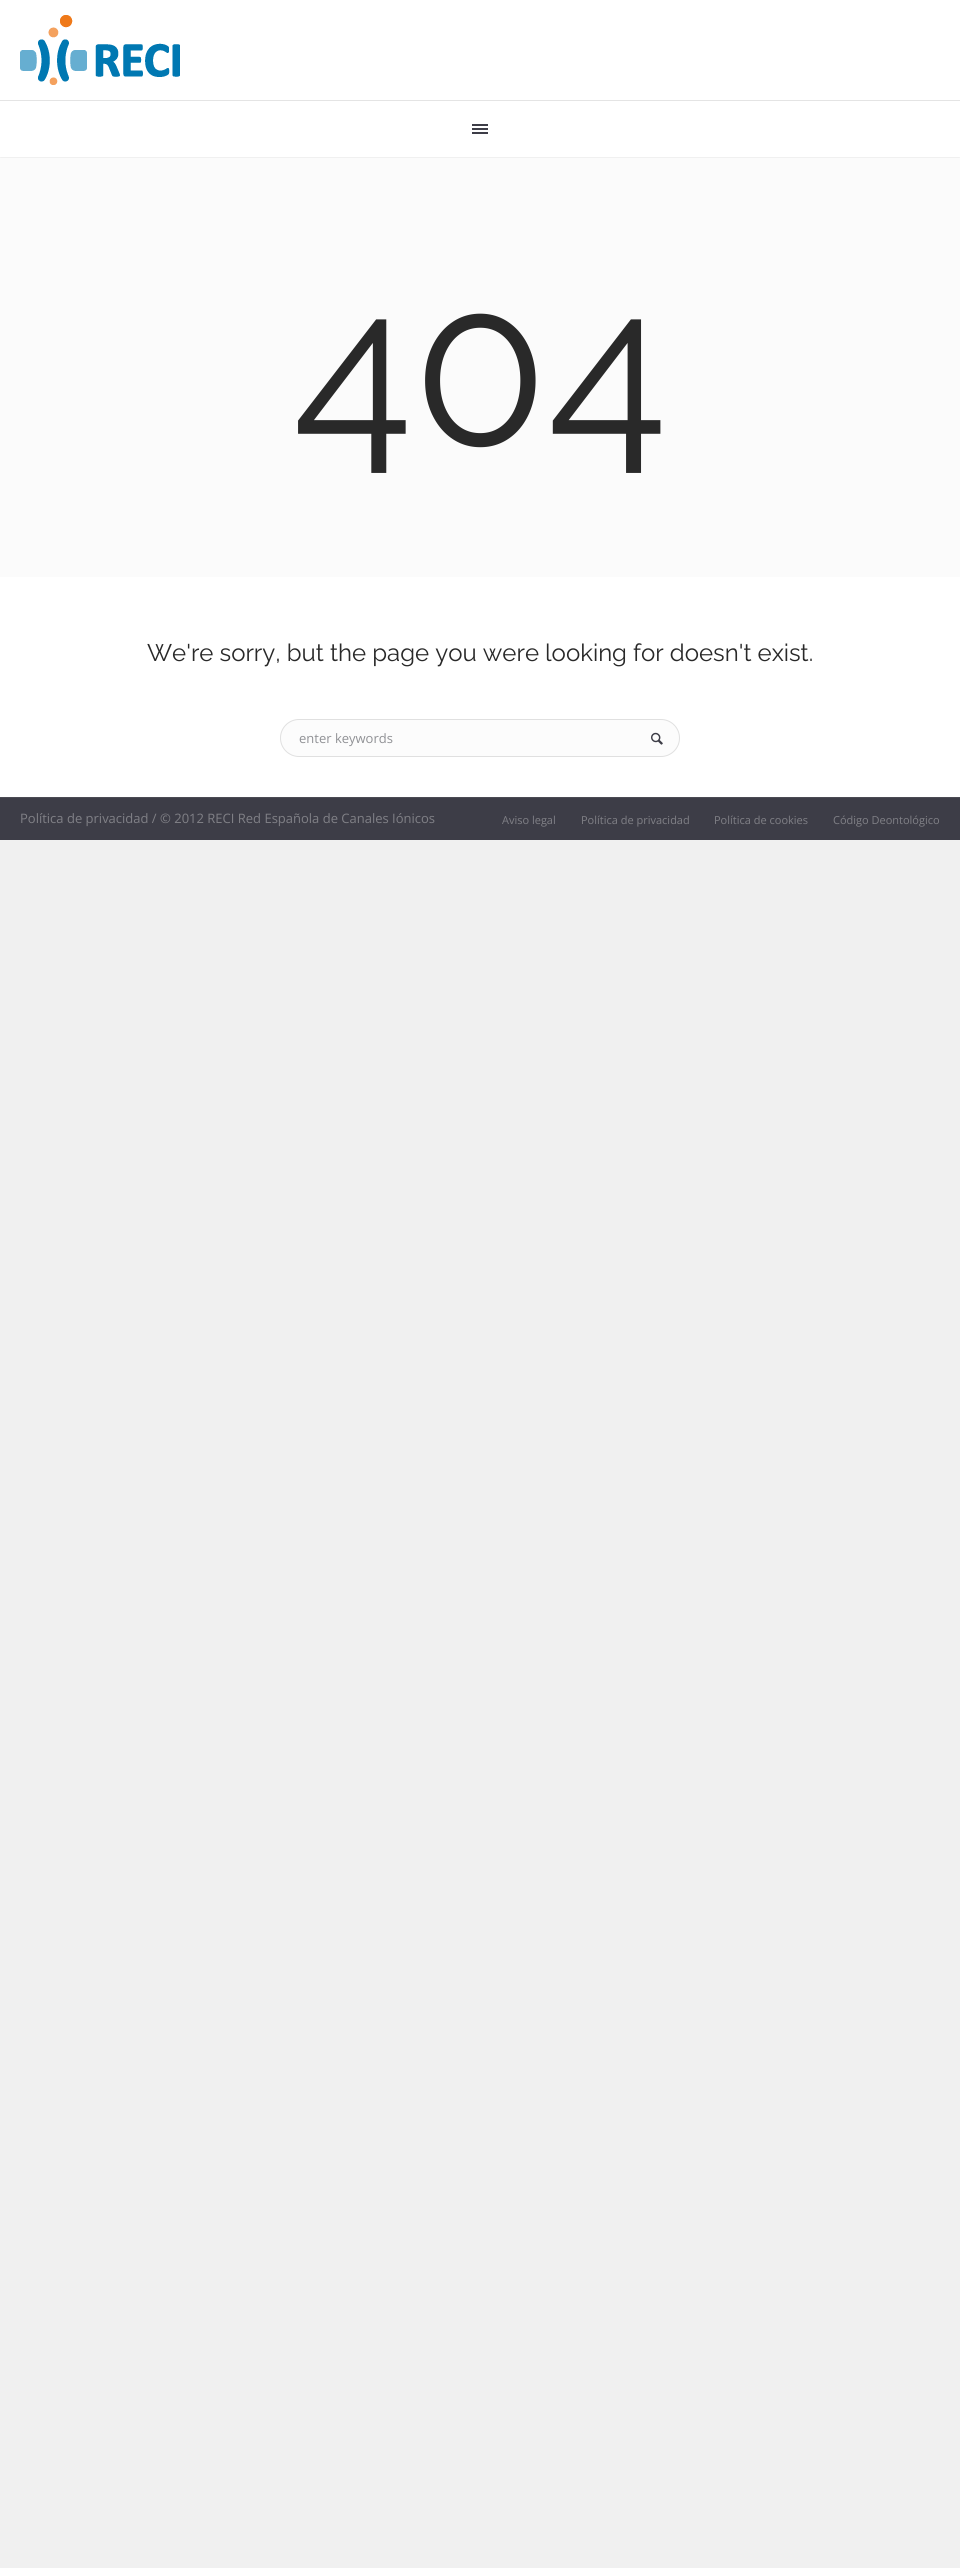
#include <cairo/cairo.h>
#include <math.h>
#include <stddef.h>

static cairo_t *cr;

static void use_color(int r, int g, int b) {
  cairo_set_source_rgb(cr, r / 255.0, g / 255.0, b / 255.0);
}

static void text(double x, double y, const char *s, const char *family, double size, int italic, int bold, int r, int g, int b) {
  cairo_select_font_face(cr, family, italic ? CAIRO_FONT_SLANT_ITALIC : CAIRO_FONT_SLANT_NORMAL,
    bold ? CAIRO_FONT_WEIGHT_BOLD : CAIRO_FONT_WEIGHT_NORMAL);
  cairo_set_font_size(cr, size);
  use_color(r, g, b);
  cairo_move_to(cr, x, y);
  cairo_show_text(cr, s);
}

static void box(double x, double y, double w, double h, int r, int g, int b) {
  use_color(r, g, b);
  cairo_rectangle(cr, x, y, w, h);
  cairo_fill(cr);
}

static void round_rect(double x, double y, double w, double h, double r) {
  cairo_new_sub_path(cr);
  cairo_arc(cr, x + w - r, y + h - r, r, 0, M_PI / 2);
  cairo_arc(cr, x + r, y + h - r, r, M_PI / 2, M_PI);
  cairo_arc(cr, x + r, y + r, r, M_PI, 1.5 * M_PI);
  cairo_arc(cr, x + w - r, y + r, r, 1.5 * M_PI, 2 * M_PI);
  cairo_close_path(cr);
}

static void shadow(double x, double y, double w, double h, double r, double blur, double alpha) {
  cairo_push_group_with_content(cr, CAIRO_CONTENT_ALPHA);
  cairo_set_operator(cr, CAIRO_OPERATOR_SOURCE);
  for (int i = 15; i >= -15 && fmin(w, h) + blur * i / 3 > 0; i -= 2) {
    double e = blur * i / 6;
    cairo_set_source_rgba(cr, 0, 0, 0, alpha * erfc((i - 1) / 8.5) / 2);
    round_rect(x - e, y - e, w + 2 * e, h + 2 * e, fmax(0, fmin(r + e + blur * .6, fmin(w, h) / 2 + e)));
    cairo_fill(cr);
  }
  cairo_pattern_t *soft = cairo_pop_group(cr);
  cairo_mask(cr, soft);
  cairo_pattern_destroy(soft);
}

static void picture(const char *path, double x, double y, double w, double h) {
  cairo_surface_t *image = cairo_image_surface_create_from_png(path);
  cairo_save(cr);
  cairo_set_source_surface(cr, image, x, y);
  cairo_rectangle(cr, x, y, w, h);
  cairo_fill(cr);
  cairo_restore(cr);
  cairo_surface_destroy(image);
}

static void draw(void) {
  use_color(240, 240, 240);
  cairo_paint(cr);
  box(0, 0, 960, 797, 255, 255, 255);
  box(0, 157, 960, 420, 251, 251, 251);
  cairo_save(cr);
  cairo_rectangle(cr, 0, 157, 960, 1);
  cairo_clip(cr);
  use_color(0, 0, 0);
  shadow(0, 1, 960, 157, 0, 0.5, 0.05);
  cairo_restore(cr);
  picture("img_01.png", 20, 15, 160, 70);
  box(0, 100, 960, 1, 228, 228, 228);
  box(472, 124, 16, 2, 61, 61, 71);
  box(472, 132, 16, 2, 61, 61, 71);
  box(472, 128, 16, 2, 61, 61, 71);
  use_color(252, 252, 252);
  round_rect(280.5, 719.5, 399, 37, 18.5);
  cairo_fill_preserve(cr);
  use_color(224, 224, 224);
  cairo_set_line_width(cr, 1);
  cairo_stroke(cr);
  picture("img_02.png", 651, 732, 12, 13);
  box(0, 798, 960, 42, 61, 61, 71);
  box(0, 797, 960, 1, 75, 75, 84);
  text(293, 445, "404", "Raleway", 220, 0, 0, 41, 41, 41);
  text(147, 661, "We're sorry, but the page you were looking for doesn't exist.", "Raleway", 24, 0, 0, 41, 41, 41);
  text(299, 743, "enter keywords", "Open Sans", 13, 0, 0, 144, 145, 149);
  text(20, 823, "Política de privacidad / © 2012 RECI Red Española de Canales Iónicos", "Open Sans", 13, 0, 0, 128, 128, 134);
  text(502, 824, "Aviso legal", "Open Sans", 11, 0, 0, 128, 128, 134);
  text(581, 824, "Política de privacidad", "Open Sans", 11, 0, 0, 128, 128, 134);
  text(714, 824, "Política de cookies", "Open Sans", 11, 0, 0, 128, 128, 134);
  text(833, 824, "Código Deontológico", "Open Sans", 11, 0, 0, 128, 128, 134);
}

int main(void) {
  cairo_surface_t *surface = cairo_image_surface_create(CAIRO_FORMAT_RGB24, 960, 2568);
  cr = cairo_create(surface);
  cairo_font_options_t *options = cairo_font_options_create();
  cairo_font_options_set_hint_metrics(options, CAIRO_HINT_METRICS_OFF);
  cairo_font_options_set_hint_style(options, CAIRO_HINT_STYLE_NONE);
  cairo_set_font_options(cr, options);
  cairo_set_miter_limit(cr, 4);
  draw();
  cairo_surface_write_to_png(surface, "out.png");
  cairo_font_options_destroy(options);
  cairo_destroy(cr);
  cairo_surface_destroy(surface);
  return 0;
}
